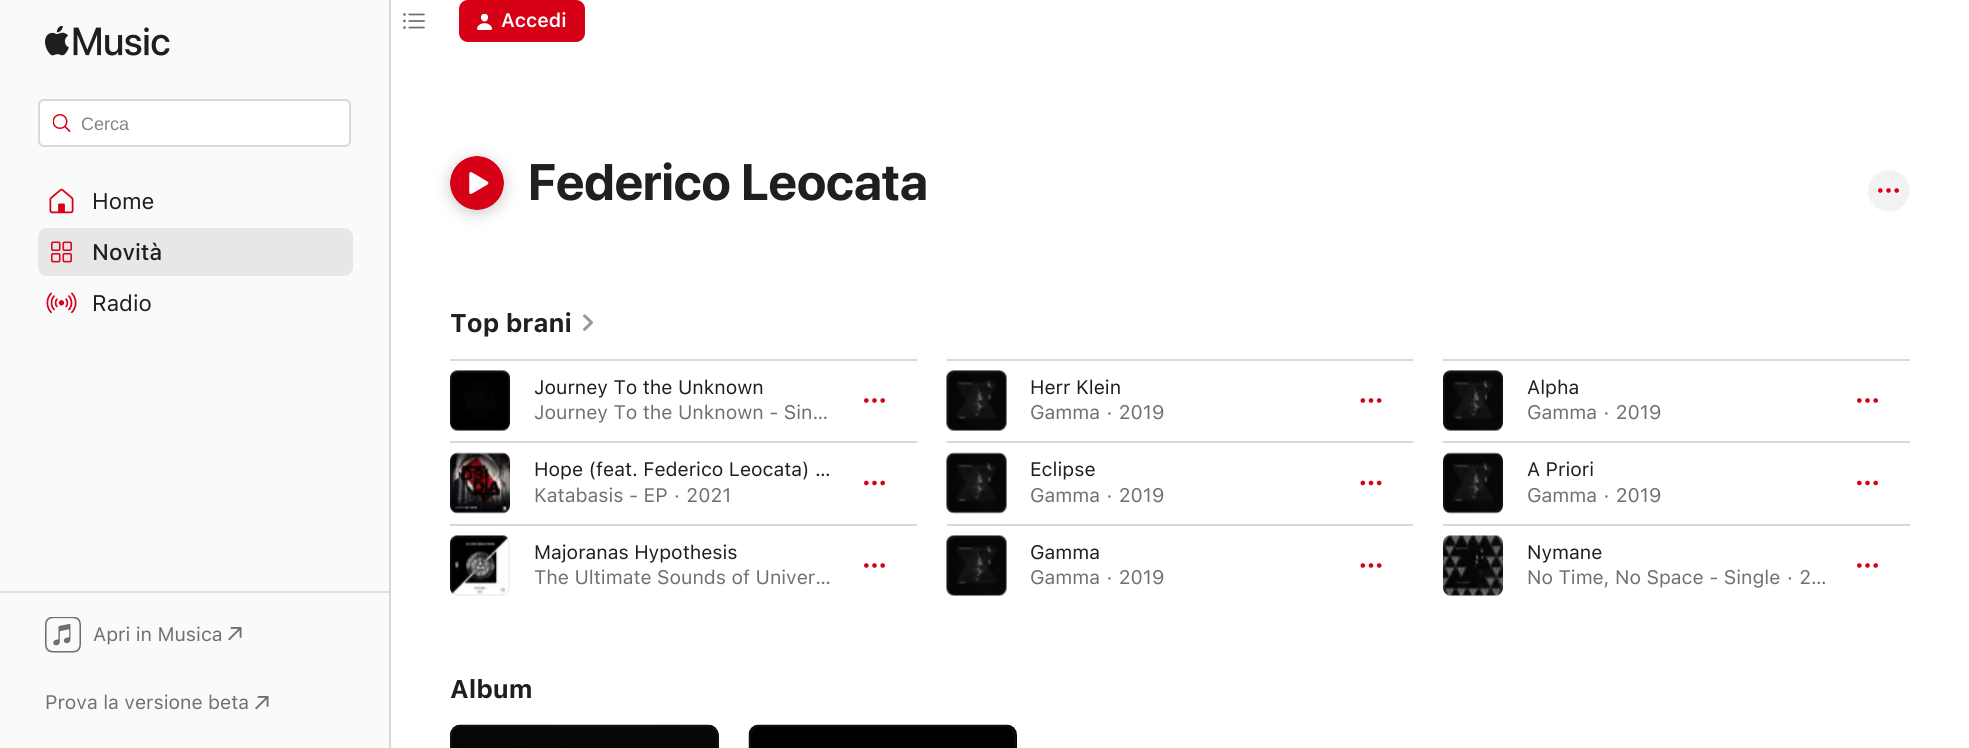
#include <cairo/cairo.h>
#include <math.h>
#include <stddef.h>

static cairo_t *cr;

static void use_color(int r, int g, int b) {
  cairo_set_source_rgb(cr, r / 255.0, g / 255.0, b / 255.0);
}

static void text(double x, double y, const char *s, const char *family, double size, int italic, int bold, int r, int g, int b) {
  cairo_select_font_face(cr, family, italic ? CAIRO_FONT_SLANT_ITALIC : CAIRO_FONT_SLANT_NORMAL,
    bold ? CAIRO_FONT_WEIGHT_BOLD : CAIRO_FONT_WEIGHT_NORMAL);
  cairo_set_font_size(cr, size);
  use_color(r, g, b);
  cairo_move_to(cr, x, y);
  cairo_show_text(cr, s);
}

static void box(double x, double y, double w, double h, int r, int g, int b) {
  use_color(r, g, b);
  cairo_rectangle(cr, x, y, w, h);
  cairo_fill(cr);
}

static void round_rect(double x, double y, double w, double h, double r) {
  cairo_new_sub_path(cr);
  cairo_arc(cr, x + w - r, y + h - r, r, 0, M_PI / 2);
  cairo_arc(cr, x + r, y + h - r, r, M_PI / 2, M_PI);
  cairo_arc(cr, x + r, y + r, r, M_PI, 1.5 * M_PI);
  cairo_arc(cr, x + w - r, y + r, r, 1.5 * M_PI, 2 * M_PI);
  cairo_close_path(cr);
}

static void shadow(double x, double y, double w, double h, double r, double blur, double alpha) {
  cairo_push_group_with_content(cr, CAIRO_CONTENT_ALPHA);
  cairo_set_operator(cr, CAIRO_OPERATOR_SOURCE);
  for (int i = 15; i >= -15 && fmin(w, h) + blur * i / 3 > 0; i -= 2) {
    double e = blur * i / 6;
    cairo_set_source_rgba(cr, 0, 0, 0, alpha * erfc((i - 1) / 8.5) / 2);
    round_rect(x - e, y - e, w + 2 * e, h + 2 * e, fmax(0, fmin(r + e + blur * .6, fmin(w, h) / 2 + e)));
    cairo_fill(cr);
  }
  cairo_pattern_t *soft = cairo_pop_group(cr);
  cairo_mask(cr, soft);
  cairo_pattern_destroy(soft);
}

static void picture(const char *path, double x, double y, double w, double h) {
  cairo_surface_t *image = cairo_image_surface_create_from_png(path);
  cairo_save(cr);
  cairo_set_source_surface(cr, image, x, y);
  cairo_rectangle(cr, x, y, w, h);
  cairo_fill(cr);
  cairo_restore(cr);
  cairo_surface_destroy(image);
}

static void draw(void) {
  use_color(255, 255, 255);
  cairo_paint(cr);
  box(390, 0, 1, 748, 217, 217, 217);
  picture("img_01.png", 403, 13, 22, 16);
  use_color(214, 0, 23);
  round_rect(459, 0, 126, 42, 9);
  cairo_fill(cr);
  picture("img_02.png", 477, 14, 15, 16);
  box(0, 0, 389, 748, 250, 250, 250);
  box(0, 591, 390, 2, 225, 225, 225);
  box(389, 0, 1, 748, 213, 213, 213);
  box(389, 591, 1, 2, 192, 192, 192);
  picture("img_03.png", 45, 26, 125, 30);
  use_color(255, 255, 255);
  round_rect(39, 100, 311, 46, 5);
  cairo_fill_preserve(cr);
  use_color(217, 217, 217);
  cairo_stroke(cr);
  picture("img_04.png", 53, 114, 18, 18);
  picture("img_05.png", 49, 188, 25, 26);
  use_color(231, 231, 232);
  round_rect(38, 228, 315, 48, 9);
  cairo_fill(cr);
  picture("img_06.png", 51, 241, 21, 22);
  picture("img_07.png", 46, 292, 31, 22);
  picture("img_08.png", 45, 617, 36, 36);
  picture("img_09.png", 228, 627, 14, 14);
  picture("img_09.png", 255, 696, 14, 14);
  use_color(0, 0, 0);
  shadow(450, 159, 54, 54, 27, 7.5, 0.2);
  picture("img_10.png", 450, 156, 54, 54);
  picture("img_11.png", 1868, 170, 42, 42);
  picture("img_12.png", 583, 314, 10, 17);
  box(450, 359, 467, 2, 217, 217, 217);
  picture("img_13.png", 450, 370, 60, 61);
  round_rect(451, 372, 58, 58, 7);
  cairo_set_source_rgba(cr, 0.502, 0.502, 0.502, 0.1);
  cairo_stroke(cr);
  picture("img_14.png", 864, 398, 21, 5);
  box(947, 359, 466, 2, 217, 217, 217);
  picture("img_15.png", 946, 370, 61, 61);
  round_rect(948, 372, 58, 58, 7);
  cairo_set_source_rgba(cr, 0.502, 0.502, 0.502, 0.1);
  cairo_stroke(cr);
  picture("img_16.png", 1360, 398, 22, 5);
  box(1443, 359, 467, 2, 217, 217, 217);
  picture("img_17.png", 1443, 370, 60, 61);
  round_rect(1444, 372, 58, 58, 7);
  cairo_set_source_rgba(cr, 0.502, 0.502, 0.502, 0.1);
  cairo_stroke(cr);
  picture("img_14.png", 1857, 398, 21, 5);
  box(450, 441, 467, 2, 217, 217, 217);
  picture("img_18.png", 450, 452, 60, 62);
  round_rect(451, 454, 58, 58, 7);
  cairo_set_source_rgba(cr, 0.502, 0.502, 0.502, 0.1);
  cairo_stroke(cr);
  picture("img_19.png", 864, 480, 21, 6);
  box(947, 441, 466, 2, 217, 217, 217);
  picture("img_20.png", 946, 452, 61, 62);
  round_rect(948, 454, 58, 58, 7);
  cairo_set_source_rgba(cr, 0.502, 0.502, 0.502, 0.1);
  cairo_stroke(cr);
  picture("img_21.png", 1360, 480, 22, 6);
  box(1443, 441, 467, 2, 217, 217, 217);
  picture("img_22.png", 1443, 452, 60, 62);
  round_rect(1444, 454, 58, 58, 7);
  cairo_set_source_rgba(cr, 0.502, 0.502, 0.502, 0.1);
  cairo_stroke(cr);
  picture("img_19.png", 1857, 480, 21, 6);
  box(450, 524, 467, 2, 217, 217, 217);
  picture("img_23.png", 450, 535, 59, 61);
  round_rect(451, 537, 58, 58, 7);
  cairo_set_source_rgba(cr, 0.502, 0.502, 0.502, 0.1);
  cairo_stroke(cr);
  picture("img_14.png", 864, 563, 21, 5);
  box(947, 524, 466, 2, 217, 217, 217);
  picture("img_24.png", 946, 535, 61, 61);
  round_rect(948, 537, 58, 58, 7);
  cairo_set_source_rgba(cr, 0.502, 0.502, 0.502, 0.1);
  cairo_stroke(cr);
  picture("img_16.png", 1360, 563, 22, 5);
  box(1443, 524, 467, 2, 217, 217, 217);
  picture("img_25.png", 1443, 535, 60, 61);
  round_rect(1444, 537, 58, 58, 7);
  cairo_set_source_rgba(cr, 0.502, 0.502, 0.502, 0.1);
  cairo_stroke(cr);
  picture("img_14.png", 1857, 563, 21, 5);
  use_color(6, 6, 6);
  cairo_new_path(cr);
  cairo_move_to(cr, 461, 725);
  cairo_line_to(cr, 708, 725);
  cairo_curve_to(cr, 714, 725, 719, 730, 719, 736);
  cairo_line_to(cr, 719, 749);
  cairo_line_to(cr, 450, 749);
  cairo_line_to(cr, 450, 736);
  cairo_curve_to(cr, 450, 730, 455, 725, 461, 725);
  cairo_close_path(cr);
  cairo_fill(cr);
  picture("img_26.png", 450, 724, 269, 24);
  round_rect(451, 726, 267, 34, 10);
  cairo_set_source_rgba(cr, 0.502, 0.502, 0.502, 0.1);
  cairo_stroke(cr);
  picture("img_27.png", 748, 724, 269, 24);
  round_rect(750, 726, 265, 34, 10);
  use_color(13, 13, 13);
  cairo_stroke(cr);
  text(501, 27, "Accedi", "SF SemiBold", 19.5, 0, 0, 255, 255, 255);
  text(81, 130, "Cerca", "Liberation Sans", 18, 0, 0, 133, 133, 133);
  text(92, 209, "Home", "SF", 22.5, 0, 0, 31, 31, 31);
  text(92, 260, "Novità", "SF Medium", 22.5, 0, 0, 31, 31, 31);
  text(92, 311, "Radio", "SF", 22.5, 0, 0, 31, 31, 31);
  text(93, 641, "Apri in Musica", "SF", 19.5, 0, 0, 112, 112, 112);
  text(45, 709, "Prova la versione beta", "SF", 19.5, 0, 0, 112, 112, 112);
  text(528, 200, "Federico Leocata", "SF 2", 51, 0, 1, 31, 31, 31);
  text(450, 332, "Top brani", "SF", 25.5, 0, 1, 31, 31, 31);
  text(534, 394, "Journey To the Unknown", "SF", 19.5, 0, 0, 31, 31, 31);
  text(534, 419, "Journey To the Unknown - Sin…", "SF", 19.5, 0, 0, 112, 112, 112);
  text(1030, 394, "Herr Klein", "SF", 19.5, 0, 0, 31, 31, 31);
  text(1030, 419, "Gamma · 2019", "SF", 19.5, 0, 0, 112, 112, 112);
  text(1527, 394, "Alpha", "SF", 19.5, 0, 0, 31, 31, 31);
  text(1527, 419, "Gamma · 2019", "SF", 19.5, 0, 0, 112, 112, 112);
  text(534, 476, "Hope (feat. Federico Leocata) …", "SF", 19.5, 0, 0, 31, 31, 31);
  text(534, 502, "Katabasis - EP · 2021", "SF", 19.5, 0, 0, 112, 112, 112);
  text(1030, 476, "Eclipse", "SF", 19.5, 0, 0, 31, 31, 31);
  text(1030, 502, "Gamma · 2019", "SF", 19.5, 0, 0, 112, 112, 112);
  text(1527, 476, "A Priori", "SF", 19.5, 0, 0, 31, 31, 31);
  text(1527, 502, "Gamma · 2019", "SF", 19.5, 0, 0, 112, 112, 112);
  text(534, 559, "Majoranas Hypothesis", "SF", 19.5, 0, 0, 31, 31, 31);
  text(534, 584, "The Ultimate Sounds of Univer…", "SF", 19.5, 0, 0, 112, 112, 112);
  text(1030, 559, "Gamma", "SF", 19.5, 0, 0, 31, 31, 31);
  text(1030, 584, "Gamma · 2019", "SF", 19.5, 0, 0, 112, 112, 112);
  text(1527, 559, "Nymane", "SF", 19.5, 0, 0, 31, 31, 31);
  text(1527, 584, "No Time, No Space - Single · 2…", "SF", 19.5, 0, 0, 112, 112, 112);
  text(450, 698, "Album", "SF", 25.5, 0, 1, 31, 31, 31);
}

int main(void) {
  cairo_surface_t *surface = cairo_image_surface_create(CAIRO_FORMAT_RGB24, 1969, 748);
  cr = cairo_create(surface);
  cairo_font_options_t *options = cairo_font_options_create();
  cairo_font_options_set_hint_metrics(options, CAIRO_HINT_METRICS_OFF);
  cairo_font_options_set_hint_style(options, CAIRO_HINT_STYLE_NONE);
  cairo_set_font_options(cr, options);
  cairo_set_miter_limit(cr, 4);
  draw();
  cairo_surface_write_to_png(surface, "out.png");
  cairo_font_options_destroy(options);
  cairo_destroy(cr);
  cairo_surface_destroy(surface);
  return 0;
}
